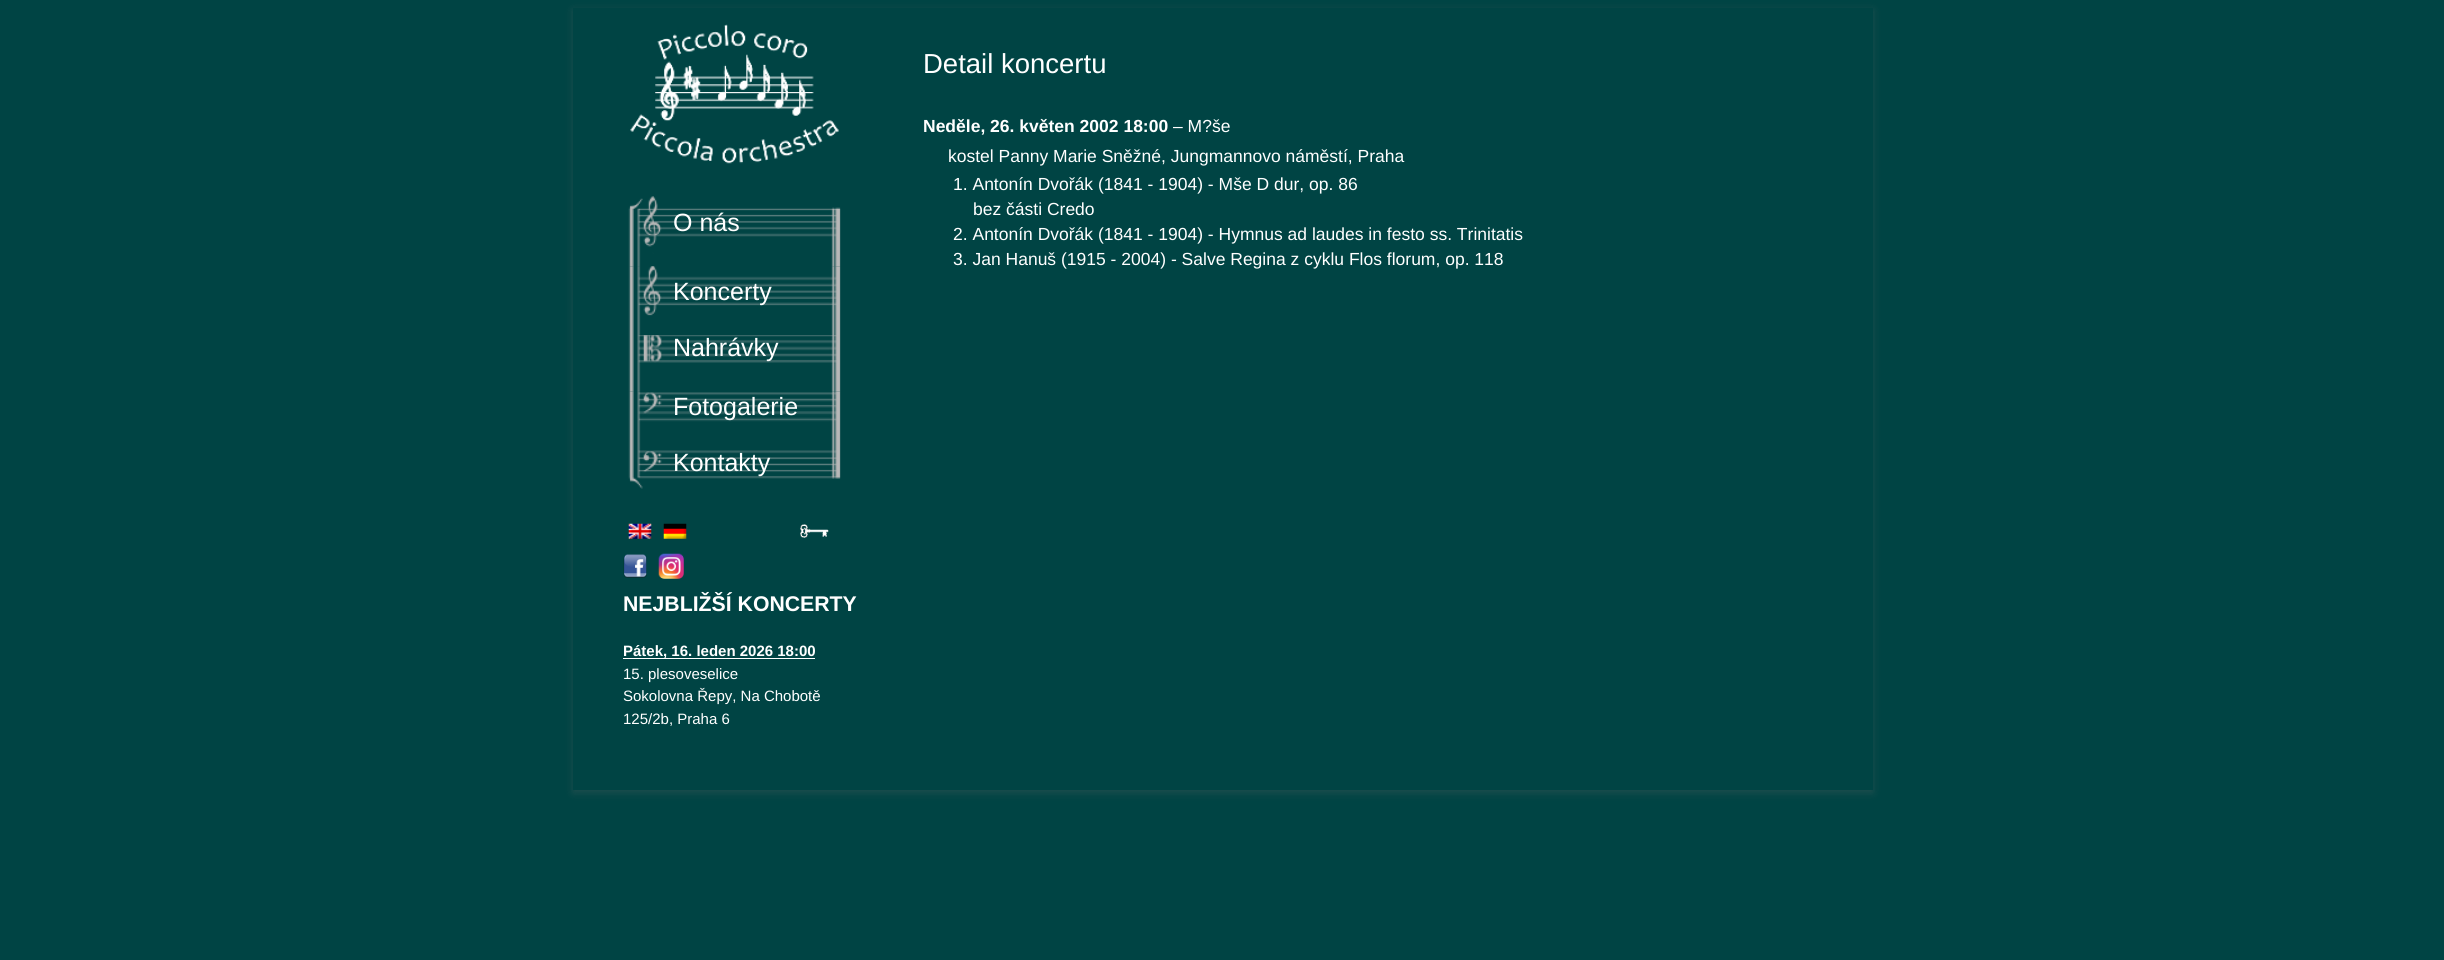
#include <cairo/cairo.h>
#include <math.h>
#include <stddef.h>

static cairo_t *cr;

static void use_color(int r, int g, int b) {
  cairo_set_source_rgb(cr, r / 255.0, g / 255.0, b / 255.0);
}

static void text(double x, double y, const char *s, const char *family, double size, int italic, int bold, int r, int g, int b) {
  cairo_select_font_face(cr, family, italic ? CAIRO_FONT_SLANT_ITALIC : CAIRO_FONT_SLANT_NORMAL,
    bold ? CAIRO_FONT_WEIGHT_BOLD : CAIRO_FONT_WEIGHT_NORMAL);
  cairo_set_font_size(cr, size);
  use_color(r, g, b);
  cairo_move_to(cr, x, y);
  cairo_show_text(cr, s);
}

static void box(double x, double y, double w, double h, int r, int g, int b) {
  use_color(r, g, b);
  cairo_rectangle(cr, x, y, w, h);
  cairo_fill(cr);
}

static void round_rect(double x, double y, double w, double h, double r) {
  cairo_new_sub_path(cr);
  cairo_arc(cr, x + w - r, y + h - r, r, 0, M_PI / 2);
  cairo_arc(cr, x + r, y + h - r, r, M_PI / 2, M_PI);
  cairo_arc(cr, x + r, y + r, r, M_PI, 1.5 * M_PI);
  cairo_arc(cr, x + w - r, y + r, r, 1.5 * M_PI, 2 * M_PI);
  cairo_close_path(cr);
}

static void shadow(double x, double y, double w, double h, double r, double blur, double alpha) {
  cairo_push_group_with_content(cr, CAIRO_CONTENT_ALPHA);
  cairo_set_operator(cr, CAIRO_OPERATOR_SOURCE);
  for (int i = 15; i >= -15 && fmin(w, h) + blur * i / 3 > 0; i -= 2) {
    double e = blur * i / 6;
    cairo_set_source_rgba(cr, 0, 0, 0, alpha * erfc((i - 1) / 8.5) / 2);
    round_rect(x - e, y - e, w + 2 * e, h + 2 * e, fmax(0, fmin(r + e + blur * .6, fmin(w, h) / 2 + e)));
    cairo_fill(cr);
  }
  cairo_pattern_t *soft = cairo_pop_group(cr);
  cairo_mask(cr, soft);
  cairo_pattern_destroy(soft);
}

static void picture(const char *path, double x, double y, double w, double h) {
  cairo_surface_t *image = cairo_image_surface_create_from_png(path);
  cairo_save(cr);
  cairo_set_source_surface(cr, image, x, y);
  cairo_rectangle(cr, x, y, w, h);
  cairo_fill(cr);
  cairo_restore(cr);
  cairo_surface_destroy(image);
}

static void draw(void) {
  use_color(0, 68, 68);
  cairo_paint(cr);
  use_color(100, 100, 100);
  shadow(573, 10, 1300, 783, 0, 4, 0.3);
  box(573, 8, 1300, 782, 0, 68, 68);
  picture("img_01.png", 630, 24, 209, 140);
  picture("img_02.png", 628, 196, 213, 71);
  picture("img_03.png", 628, 266, 213, 69);
  picture("img_04.png", 628, 335, 213, 57);
  picture("img_05.png", 628, 391, 213, 59);
  picture("img_06.png", 628, 450, 213, 39);
  picture("img_07.png", 628, 523, 24, 16);
  picture("img_08.png", 663, 523, 24, 16);
  picture("img_09.png", 800, 524, 29, 14);
  picture("img_10.png", 623, 554, 24, 24);
  picture("img_11.png", 658, 553, 26, 26);
  box(623, 658, 192, 1, 255, 255, 255);
  text(923, 73, "Detail koncertu", "Liberation Sans", 27.5, 0, 0, 255, 255, 255);
  text(923, 132, "Neděle, 26. květen 2002 18:00", "Liberation Sans", 17.5, 0, 1, 255, 255, 255);
  text(1173, 132, "– M?še", "Liberation Sans", 17.5, 0, 0, 255, 255, 255);
  text(948, 162, "kostel Panny Marie Sněžné, Jungmannovo náměstí, Praha", "Liberation Sans", 17.5, 0, 0, 255, 255, 255);
  text(953, 190, "1. Antonín Dvořák (1841 - 1904) - Mše D dur, op. 86", "Liberation Sans", 17.5, 0, 0, 255, 255, 255);
  text(973, 215, "bez části Credo", "Liberation Sans", 17.5, 0, 0, 255, 255, 255);
  text(953, 240, "2. Antonín Dvořák (1841 - 1904) - Hymnus ad laudes in festo ss. Trinitatis", "Liberation Sans", 17.5, 0, 0, 255, 255, 255);
  text(953, 265, "3. Jan Hanuš (1915 - 2004) - Salve Regina z cyklu Flos florum, op. 118", "Liberation Sans", 17.5, 0, 0, 255, 255, 255);
  text(673, 231, "O nás", "Liberation Sans", 25, 0, 0, 255, 255, 255);
  text(673, 300, "Koncerty", "Liberation Sans", 25, 0, 0, 255, 255, 255);
  text(673, 356, "Nahrávky", "Liberation Sans", 25, 0, 0, 255, 255, 255);
  text(673, 415, "Fotogalerie", "Liberation Sans", 25, 0, 0, 255, 255, 255);
  text(673, 471, "Kontakty", "Liberation Sans", 25, 0, 0, 255, 255, 255);
  text(623, 611, "NEJBLIŽŠÍ KONCERTY", "Liberation Sans", 21.25, 0, 1, 255, 255, 255);
  text(623, 656, "Pátek, 16. leden 2026 18:00", "Liberation Sans", 15, 0, 1, 255, 255, 255);
  text(623, 679, "15. plesoveselice", "Liberation Sans", 15, 0, 0, 255, 255, 255);
  text(623, 701, "Sokolovna Řepy, Na Chobotě", "Liberation Sans", 15, 0, 0, 255, 255, 255);
  text(623, 724, "125/2b, Praha 6", "Liberation Sans", 15, 0, 0, 255, 255, 255);
}

int main(void) {
  cairo_surface_t *surface = cairo_image_surface_create(CAIRO_FORMAT_RGB24, 2444, 960);
  cr = cairo_create(surface);
  cairo_font_options_t *options = cairo_font_options_create();
  cairo_font_options_set_hint_metrics(options, CAIRO_HINT_METRICS_OFF);
  cairo_font_options_set_hint_style(options, CAIRO_HINT_STYLE_NONE);
  cairo_set_font_options(cr, options);
  cairo_set_miter_limit(cr, 4);
  draw();
  cairo_surface_write_to_png(surface, "out.png");
  cairo_font_options_destroy(options);
  cairo_destroy(cr);
  cairo_surface_destroy(surface);
  return 0;
}
